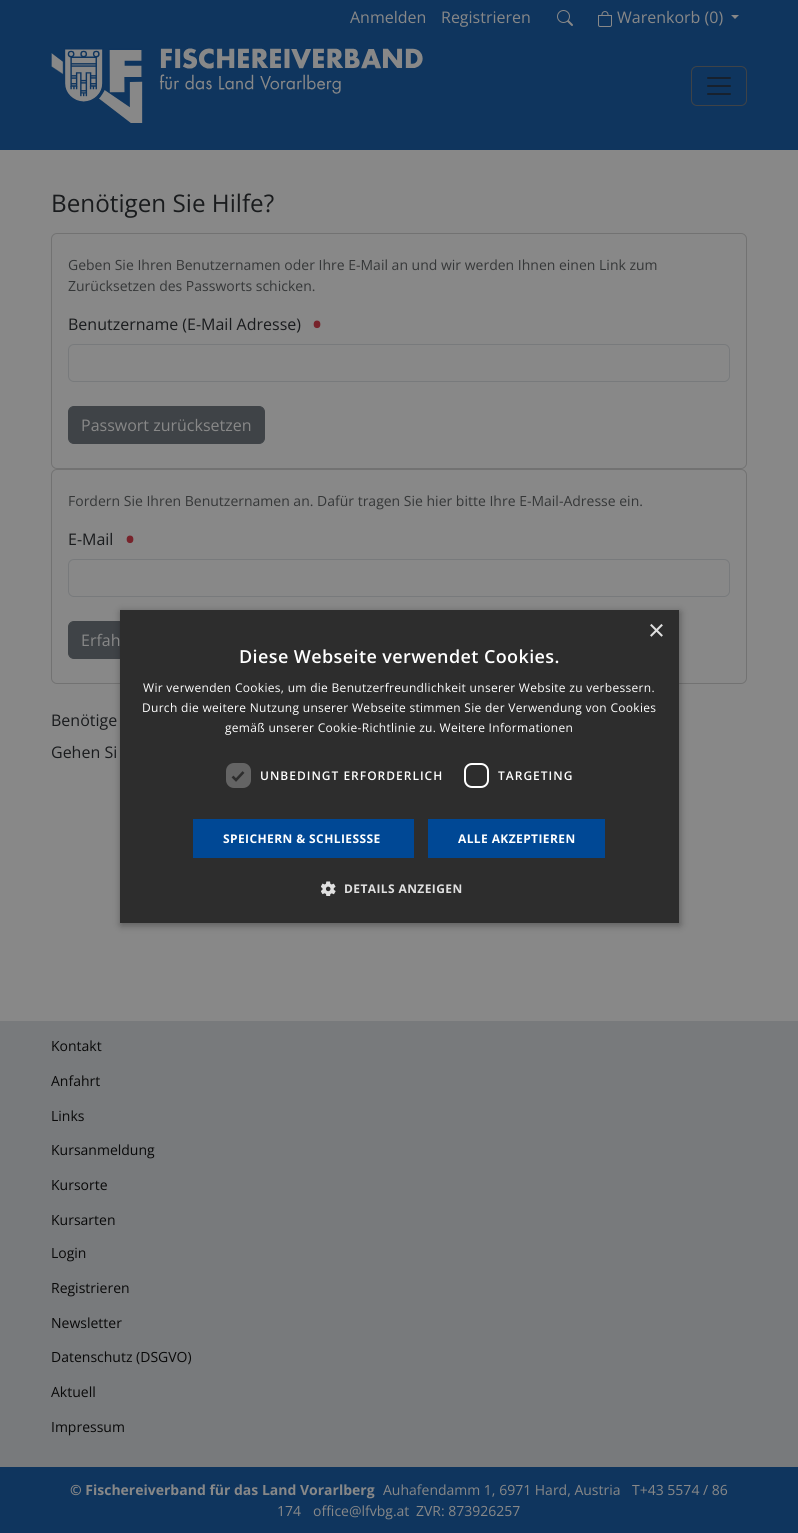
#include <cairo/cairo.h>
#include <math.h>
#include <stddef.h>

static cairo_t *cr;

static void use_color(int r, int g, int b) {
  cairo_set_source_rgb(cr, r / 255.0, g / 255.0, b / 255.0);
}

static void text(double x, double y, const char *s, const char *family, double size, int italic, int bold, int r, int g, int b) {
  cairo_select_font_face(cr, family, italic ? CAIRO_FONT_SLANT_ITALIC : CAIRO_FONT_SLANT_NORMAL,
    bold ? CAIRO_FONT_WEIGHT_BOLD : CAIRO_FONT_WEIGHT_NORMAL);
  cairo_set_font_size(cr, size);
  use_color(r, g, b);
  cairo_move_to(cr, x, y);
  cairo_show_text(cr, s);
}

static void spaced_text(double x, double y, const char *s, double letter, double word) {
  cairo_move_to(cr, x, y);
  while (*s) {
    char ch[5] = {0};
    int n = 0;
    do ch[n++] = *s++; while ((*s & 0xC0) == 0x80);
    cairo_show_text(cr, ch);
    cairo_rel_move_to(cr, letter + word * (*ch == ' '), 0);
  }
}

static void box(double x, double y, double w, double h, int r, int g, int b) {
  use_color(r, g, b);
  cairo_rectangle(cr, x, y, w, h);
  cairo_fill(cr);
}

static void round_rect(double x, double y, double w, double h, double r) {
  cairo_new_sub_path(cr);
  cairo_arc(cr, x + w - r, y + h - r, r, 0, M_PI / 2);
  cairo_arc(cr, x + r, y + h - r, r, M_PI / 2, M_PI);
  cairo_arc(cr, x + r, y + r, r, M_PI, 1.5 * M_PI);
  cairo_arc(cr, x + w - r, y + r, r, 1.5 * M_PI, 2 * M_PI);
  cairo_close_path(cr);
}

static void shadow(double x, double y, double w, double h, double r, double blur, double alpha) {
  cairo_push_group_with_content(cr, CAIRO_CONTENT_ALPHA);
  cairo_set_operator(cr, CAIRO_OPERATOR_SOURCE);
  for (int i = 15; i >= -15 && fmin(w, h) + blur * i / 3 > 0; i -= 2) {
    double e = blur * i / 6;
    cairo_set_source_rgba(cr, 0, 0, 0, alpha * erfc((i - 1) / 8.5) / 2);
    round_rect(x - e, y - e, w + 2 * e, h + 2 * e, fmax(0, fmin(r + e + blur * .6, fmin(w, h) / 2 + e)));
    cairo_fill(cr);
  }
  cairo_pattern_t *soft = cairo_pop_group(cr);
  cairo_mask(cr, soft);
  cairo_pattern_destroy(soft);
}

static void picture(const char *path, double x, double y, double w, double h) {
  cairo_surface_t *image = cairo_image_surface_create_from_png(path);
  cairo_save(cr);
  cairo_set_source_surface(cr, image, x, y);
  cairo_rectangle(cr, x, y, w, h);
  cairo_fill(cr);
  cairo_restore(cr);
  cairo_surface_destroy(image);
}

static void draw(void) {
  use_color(136, 136, 136);
  cairo_paint(cr);
  box(0, 0, 798, 150, 15, 53, 94);
  picture("img_01.png", 557, 10, 16, 16);
  picture("img_02.png", 598, 11, 14, 16);
  use_color(136, 136, 136);
  cairo_new_path(cr);
  cairo_move_to(cr, 731, 15);
  cairo_line_to(cr, 739, 15);
  cairo_line_to(cr, 735, 19);
  cairo_close_path(cr);
  cairo_fill(cr);
  picture("img_03.png", 51, 48, 372, 75);
  round_rect(691.5, 66.5, 55, 39, 5.5);
  use_color(63, 67, 71);
  cairo_set_line_width(cr, 1);
  cairo_stroke(cr);
  picture("img_04.png", 707, 77, 24, 18);
  round_rect(51.5, 233.5, 695, 235, 5.5);
  use_color(114, 114, 114);
  cairo_stroke(cr);
  round_rect(68.5, 344.5, 661, 37, 5.5);
  use_color(120, 122, 124);
  cairo_stroke(cr);
  use_color(63, 67, 71);
  round_rect(68.5, 406.5, 196, 37, 5.5);
  cairo_fill_preserve(cr);
  cairo_stroke(cr);
  round_rect(51.5, 469.5, 695, 214, 5.5);
  use_color(114, 114, 114);
  cairo_stroke(cr);
  round_rect(68.5, 559.5, 661, 37, 5.5);
  use_color(120, 122, 124);
  cairo_stroke(cr);
  use_color(63, 67, 71);
  round_rect(68.5, 621.5, 284, 37, 5.5);
  cairo_fill_preserve(cr);
  cairo_stroke(cr);
  use_color(0, 0, 0);
  shadow(121, 612, 559, 313, 0, 4, 0.35);
  box(120, 610, 559, 313, 45, 45, 45);
  use_color(100, 100, 100);
  round_rect(226, 763, 25, 25, 8);
  cairo_fill(cr);
  cairo_new_path(cr);
  cairo_move_to(cr, 232.5, 776.5);
  cairo_line_to(cr, 236, 780);
  cairo_line_to(cr, 243.5, 772);
  use_color(45, 45, 45);
  cairo_set_line_width(cr, 2.6);
  cairo_stroke(cr);
  round_rect(465, 764, 23, 23, 7);
  use_color(255, 255, 255);
  cairo_set_line_width(cr, 2);
  cairo_stroke(cr);
  box(193, 819, 221, 39, 0, 72, 149);
  box(428, 819, 177, 39, 0, 72, 149);
  picture("img_05.png", 321, 881, 15, 15);
  box(0, 1021, 798, 446, 120, 122, 124);
  box(0, 1467, 798, 66, 15, 53, 94);
  text(350, 23, "Anmelden", "Open Sans", 16, 0, 0, 136, 136, 136);
  text(441, 23, "Registrieren", "Open Sans", 16, 0, 0, 136, 136, 136);
  text(617, 23, "Warenkorb (0)", "Open Sans", 16, 0, 0, 136, 136, 136);
  text(51, 212, "Benötigen Sie Hilfe?", "Open Sans", 24.25, 0, 0, 25, 27, 29);
  text(68, 270, "Geben Sie Ihren Benutzernamen oder Ihre E-Mail an und wir werden Ihnen einen Link zum", "Open Sans", 14, 0, 0, 53, 55, 56);
  text(68, 291, "Zurücksetzen des Passworts schicken.", "Open Sans", 14, 0, 0, 53, 55, 56);
  text(68, 330, "Benutzername (E-Mail Adresse)", "Open Sans", 16, 0, 0, 25, 27, 29);
  text(311, 336, "•", "Open Sans", 32, 0, 0, 119, 35, 43);
  text(81, 431, "Passwort zurücksetzen", "Open Sans", 16, 0, 0, 136, 136, 136);
  text(68, 506, "Fordern Sie Ihren Benutzernamen an. Dafür tragen Sie hier bitte Ihre E-Mail-Adresse ein.", "Open Sans", 14, 0, 0, 53, 55, 56);
  text(68, 545, "E-Mail", "Open Sans", 16, 0, 0, 25, 27, 29);
  text(124, 551, "•", "Open Sans", 32, 0, 0, 119, 35, 43);
  text(81, 646, "Erfah", "Open Sans", 16, 0, 0, 136, 136, 136);
  text(51, 726, "Benötige", "Open Sans", 16, 0, 0, 25, 27, 29);
  text(51, 758, "Gehen Si", "Open Sans", 16, 0, 0, 25, 27, 29);
  text(648, 640, "×", "Liberation Sans", 29, 0, 0, 224, 224, 224);
  cairo_select_font_face(cr, "Open Sans SemiBold", CAIRO_FONT_SLANT_NORMAL, CAIRO_FONT_WEIGHT_NORMAL);
  cairo_set_font_size(cr, 18);
  use_color(255, 255, 255);
  spaced_text(239, 663, "Diese Webseite verwendet Cookies.", 0.4, 0);
  cairo_select_font_face(cr, "Open Sans", CAIRO_FONT_SLANT_NORMAL, CAIRO_FONT_WEIGHT_NORMAL);
  cairo_set_font_size(cr, 12);
  spaced_text(143, 692, "Wir verwenden Cookies, um die Benutzerfreundlichkeit unserer Website zu verbessern.", 0.3, 0);
  spaced_text(142, 712, "Durch die weitere Nutzung unserer Webseite stimmen Sie der Verwendung von Cookies", 0.3, 0);
  spaced_text(225, 732, "gemäß unserer Cookie-Richtlinie zu. Weitere Informationen", 0.3, 0);
  cairo_select_font_face(cr, "Open Sans SemiBold", CAIRO_FONT_SLANT_NORMAL, CAIRO_FONT_WEIGHT_NORMAL);
  spaced_text(260, 780, "UNBEDINGT ERFORDERLICH", 1, 0);
  spaced_text(498, 780, "TARGETING", 1, 0);
  cairo_select_font_face(cr, "Open Sans", CAIRO_FONT_SLANT_NORMAL, CAIRO_FONT_WEIGHT_BOLD);
  spaced_text(223, 843, "SPEICHERN & SCHLIESSSE", 0.4, 0);
  spaced_text(458, 843, "ALLE AKZEPTIEREN", 0.4, 0);
  use_color(224, 224, 224);
  spaced_text(344, 893, "DETAILS ANZEIGEN", 0.4, 0);
  text(51, 1051, "Kontakt", "Open Sans", 14, 0, 0, 9, 9, 9);
  text(51, 1086, "Anfahrt", "Open Sans", 14, 0, 0, 9, 9, 9);
  text(51, 1121, "Links", "Open Sans", 14, 0, 0, 9, 9, 9);
  text(51, 1155, "Kursanmeldung", "Open Sans", 14, 0, 0, 9, 9, 9);
  text(51, 1190, "Kursorte", "Open Sans", 14, 0, 0, 9, 9, 9);
  text(51, 1225, "Kursarten", "Open Sans", 14, 0, 0, 9, 9, 9);
  text(51, 1258, "Login", "Open Sans", 14, 0, 0, 9, 9, 9);
  text(51, 1293, "Registrieren", "Open Sans", 14, 0, 0, 9, 9, 9);
  text(51, 1328, "Newsletter", "Open Sans", 14, 0, 0, 9, 9, 9);
  text(51, 1362, "Datenschutz (DSGVO)", "Open Sans", 14, 0, 0, 9, 9, 9);
  text(51, 1397, "Aktuell", "Open Sans", 14, 0, 0, 9, 9, 9);
  text(51, 1432, "Impressum", "Open Sans", 14, 0, 0, 9, 9, 9);
  text(70, 1495, "© Fischereiverband für das Land Vorarlberg", "Open Sans", 14, 0, 1, 136, 136, 136);
  text(383, 1495, "Auhafendamm 1, 6971 Hard, Austria", "Open Sans", 14, 0, 0, 136, 136, 136);
  text(632, 1495, "T+43 5574 / 86", "Open Sans", 14, 0, 0, 136, 136, 136);
  text(277, 1516, "174", "Open Sans", 14, 0, 0, 136, 136, 136);
  text(313, 1516, "office@lfvbg.at", "Open Sans", 14, 0, 0, 136, 136, 136);
  text(416, 1516, "ZVR: 873926257", "Open Sans", 14, 0, 0, 136, 136, 136);
}

int main(void) {
  cairo_surface_t *surface = cairo_image_surface_create(CAIRO_FORMAT_RGB24, 798, 1533);
  cr = cairo_create(surface);
  cairo_font_options_t *options = cairo_font_options_create();
  cairo_font_options_set_hint_metrics(options, CAIRO_HINT_METRICS_OFF);
  cairo_font_options_set_hint_style(options, CAIRO_HINT_STYLE_NONE);
  cairo_set_font_options(cr, options);
  cairo_set_miter_limit(cr, 4);
  draw();
  cairo_surface_write_to_png(surface, "out.png");
  cairo_font_options_destroy(options);
  cairo_destroy(cr);
  cairo_surface_destroy(surface);
  return 0;
}
